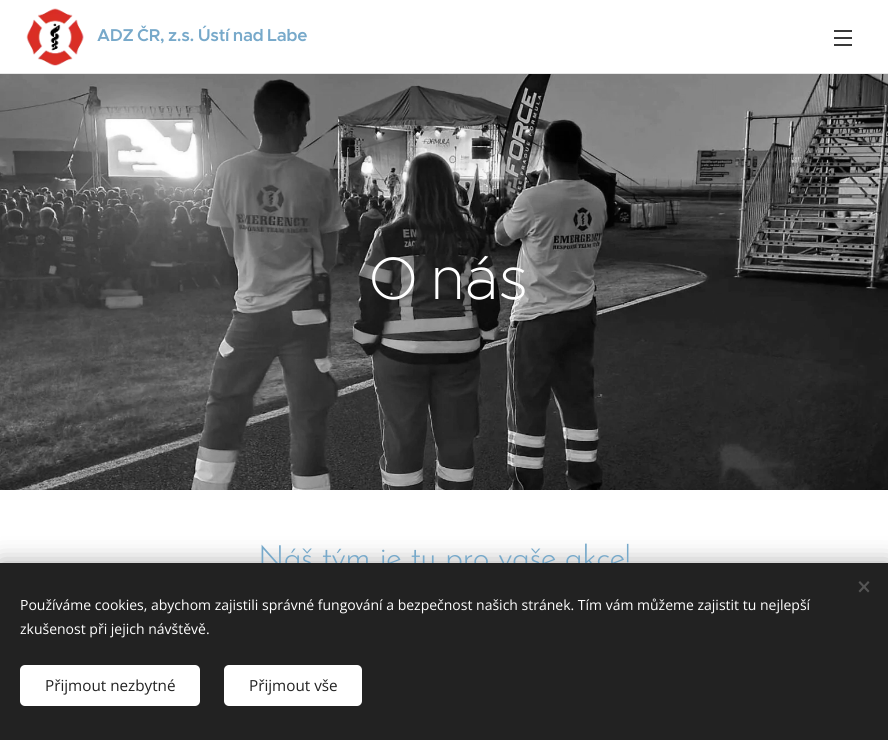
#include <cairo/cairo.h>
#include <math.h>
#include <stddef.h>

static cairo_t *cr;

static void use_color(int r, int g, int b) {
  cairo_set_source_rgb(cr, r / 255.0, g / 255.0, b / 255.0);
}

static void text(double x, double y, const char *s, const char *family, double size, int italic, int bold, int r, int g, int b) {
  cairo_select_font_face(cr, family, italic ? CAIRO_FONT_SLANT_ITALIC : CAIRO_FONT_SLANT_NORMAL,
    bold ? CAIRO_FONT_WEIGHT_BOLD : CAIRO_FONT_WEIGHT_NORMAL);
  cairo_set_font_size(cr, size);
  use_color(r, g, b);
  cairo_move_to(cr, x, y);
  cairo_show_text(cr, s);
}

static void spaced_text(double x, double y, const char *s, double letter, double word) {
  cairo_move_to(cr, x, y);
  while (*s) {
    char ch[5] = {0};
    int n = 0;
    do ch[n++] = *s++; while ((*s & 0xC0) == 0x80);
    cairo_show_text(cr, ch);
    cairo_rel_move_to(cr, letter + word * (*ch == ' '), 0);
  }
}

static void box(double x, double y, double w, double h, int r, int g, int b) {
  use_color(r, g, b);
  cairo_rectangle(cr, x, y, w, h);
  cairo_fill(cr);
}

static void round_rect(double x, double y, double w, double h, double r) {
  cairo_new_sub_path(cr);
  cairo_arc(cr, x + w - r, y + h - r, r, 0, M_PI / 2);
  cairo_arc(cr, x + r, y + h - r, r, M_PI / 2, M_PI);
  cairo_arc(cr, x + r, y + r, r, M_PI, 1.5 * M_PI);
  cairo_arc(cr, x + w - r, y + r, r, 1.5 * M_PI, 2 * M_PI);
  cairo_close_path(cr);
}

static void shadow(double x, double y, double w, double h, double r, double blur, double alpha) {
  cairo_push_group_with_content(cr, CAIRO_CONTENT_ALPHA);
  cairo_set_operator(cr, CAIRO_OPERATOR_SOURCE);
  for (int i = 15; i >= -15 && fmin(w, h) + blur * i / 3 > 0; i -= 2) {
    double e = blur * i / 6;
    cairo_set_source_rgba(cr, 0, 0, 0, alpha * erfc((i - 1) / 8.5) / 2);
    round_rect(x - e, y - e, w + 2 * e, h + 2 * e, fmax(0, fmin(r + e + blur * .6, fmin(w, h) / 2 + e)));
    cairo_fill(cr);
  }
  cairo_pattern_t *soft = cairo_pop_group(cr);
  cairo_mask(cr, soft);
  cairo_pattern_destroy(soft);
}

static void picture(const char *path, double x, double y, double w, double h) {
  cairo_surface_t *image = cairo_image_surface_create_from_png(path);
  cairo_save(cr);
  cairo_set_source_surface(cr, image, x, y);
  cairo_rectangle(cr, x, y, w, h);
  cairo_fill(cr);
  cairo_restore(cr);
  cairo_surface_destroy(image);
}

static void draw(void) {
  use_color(255, 255, 255);
  cairo_paint(cr);
  picture("img_01.png", 26, 8, 58, 58);
  box(834, 37, 18, 2, 57, 57, 57);
  box(834, 30, 18, 2, 57, 57, 57);
  box(834, 44, 18, 2, 57, 57, 57);
  box(0, 73, 888, 1, 232, 232, 232);
  picture("img_02.png", 0, 74, 888, 416);
  use_color(0, 0, 0);
  shadow(0, 563, 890, 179, 0, 12.5, 0.33);
  cairo_select_font_face(cr, "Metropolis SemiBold", CAIRO_FONT_SLANT_NORMAL, CAIRO_FONT_WEIGHT_NORMAL);
  cairo_set_font_size(cr, 17.25);
  use_color(119, 169, 202);
  spaced_text(97, 41, "ADZ ČR, z.s. Ústí nad Labe", -0.3, -1);
  cairo_select_font_face(cr, "Metropolis ExtraLight", CAIRO_FONT_SLANT_NORMAL, CAIRO_FONT_WEIGHT_NORMAL);
  cairo_set_font_size(cr, 60);
  use_color(255, 255, 255);
  spaced_text(369, 299, "O nás", 0, -4);
  cairo_select_font_face(cr, "Josefin Sans Light", CAIRO_FONT_SLANT_NORMAL, CAIRO_FONT_WEIGHT_NORMAL);
  cairo_set_font_size(cr, 32);
  use_color(119, 169, 202);
  spaced_text(258, 568, "Náš tým je tu pro vaše akce!", -0.65, 0);
  box(0, 563, 888, 177, 34, 34, 34);
  use_color(85, 85, 85);
  cairo_new_path(cr);
  cairo_move_to(cr, 858.5, 591);
  cairo_line_to(cr, 868, 581);
  cairo_line_to(cr, 869.5, 582.5);
  cairo_line_to(cr, 860, 592.5);
  cairo_close_path(cr);
  cairo_fill(cr);
  cairo_new_path(cr);
  cairo_move_to(cr, 860, 581);
  cairo_line_to(cr, 869.5, 591);
  cairo_line_to(cr, 868, 592.5);
  cairo_line_to(cr, 858.5, 582.5);
  cairo_close_path(cr);
  cairo_fill(cr);
  text(20, 610, "Používáme cookies, abychom zajistili správné fungování a bezpečnost našich stránek. Tím vám můžeme zajistit tu nejlepší", "Open Sans", 14, 0, 0, 255, 255, 255);
  text(20, 634, "zkušenost při jejich návštěvě.", "Open Sans", 14, 0, 0, 255, 255, 255);
  round_rect(20, 665, 180, 41, 5);
  cairo_fill(cr);
  text(45, 691, "Přijmout nezbytné", "Open Sans", 15.25, 0, 0, 34, 34, 34);
  use_color(255, 255, 255);
  round_rect(224, 665, 138, 41, 5);
  cairo_fill(cr);
  text(249, 691, "Přijmout vše", "Open Sans", 15.25, 0, 0, 34, 34, 34);
}

int main(void) {
  cairo_surface_t *surface = cairo_image_surface_create(CAIRO_FORMAT_RGB24, 888, 740);
  cr = cairo_create(surface);
  cairo_font_options_t *options = cairo_font_options_create();
  cairo_font_options_set_hint_metrics(options, CAIRO_HINT_METRICS_OFF);
  cairo_font_options_set_hint_style(options, CAIRO_HINT_STYLE_NONE);
  cairo_set_font_options(cr, options);
  cairo_set_miter_limit(cr, 4);
  draw();
  cairo_surface_write_to_png(surface, "out.png");
  cairo_font_options_destroy(options);
  cairo_destroy(cr);
  cairo_surface_destroy(surface);
  return 0;
}
